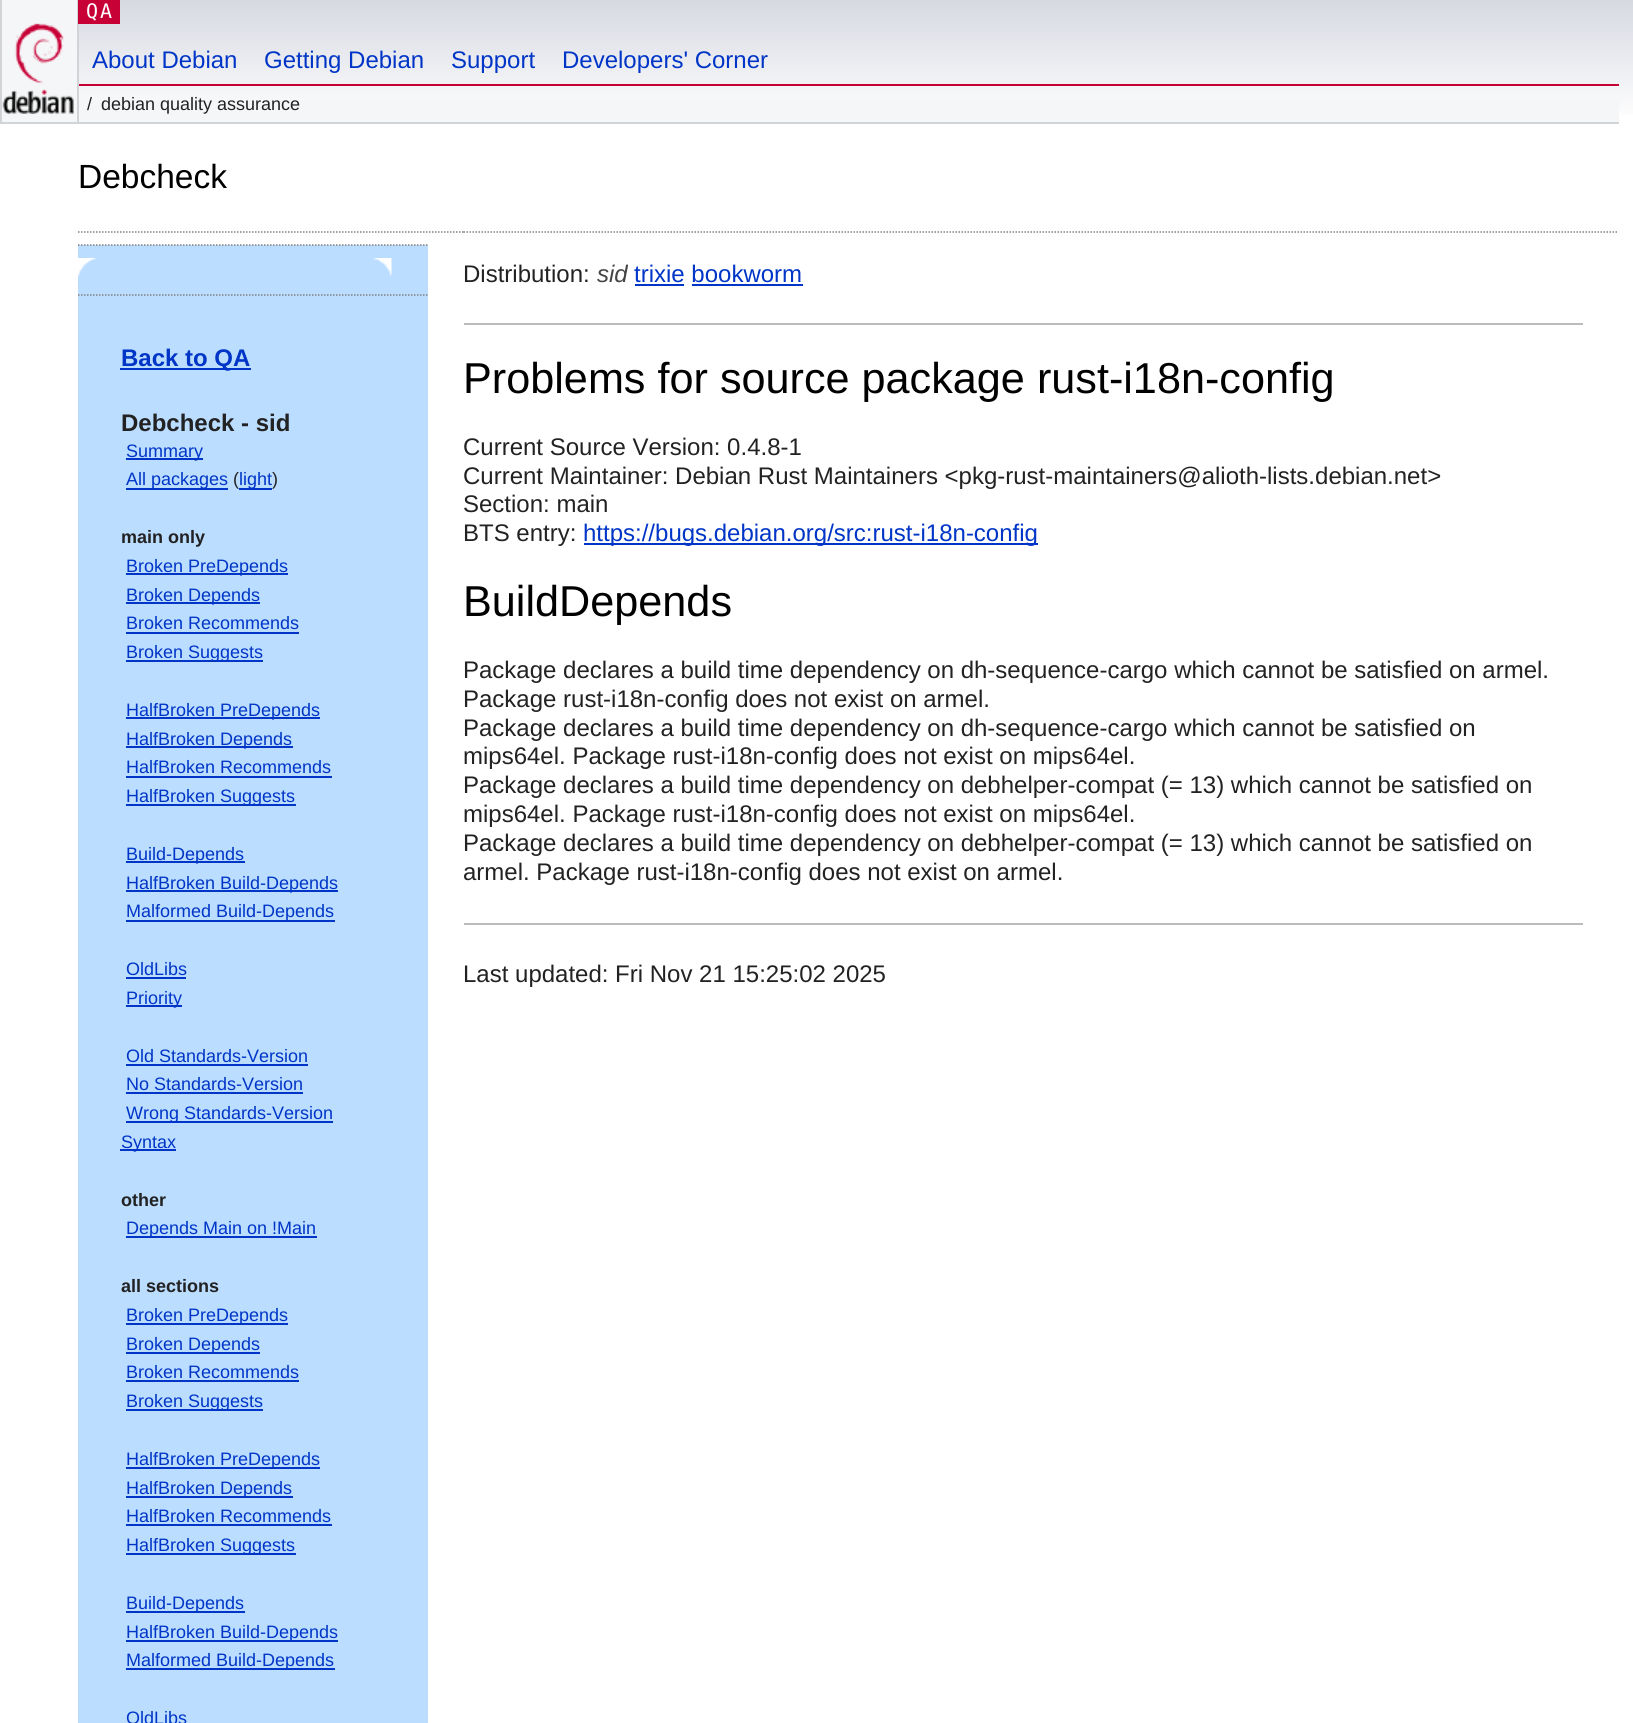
#include <cairo/cairo.h>
#include <math.h>
#include <stddef.h>

static cairo_t *cr;

static void use_color(int r, int g, int b) {
  cairo_set_source_rgb(cr, r / 255.0, g / 255.0, b / 255.0);
}

static void text(double x, double y, const char *s, const char *family, double size, int italic, int bold, int r, int g, int b) {
  cairo_select_font_face(cr, family, italic ? CAIRO_FONT_SLANT_ITALIC : CAIRO_FONT_SLANT_NORMAL,
    bold ? CAIRO_FONT_WEIGHT_BOLD : CAIRO_FONT_WEIGHT_NORMAL);
  cairo_set_font_size(cr, size);
  use_color(r, g, b);
  cairo_move_to(cr, x, y);
  cairo_show_text(cr, s);
}

static void spaced_text(double x, double y, const char *s, double letter, double word) {
  cairo_move_to(cr, x, y);
  while (*s) {
    char ch[5] = {0};
    int n = 0;
    do ch[n++] = *s++; while ((*s & 0xC0) == 0x80);
    cairo_show_text(cr, ch);
    cairo_rel_move_to(cr, letter + word * (*ch == ' '), 0);
  }
}

static void box(double x, double y, double w, double h, int r, int g, int b) {
  use_color(r, g, b);
  cairo_rectangle(cr, x, y, w, h);
  cairo_fill(cr);
}

static void picture(const char *path, double x, double y, double w, double h) {
  cairo_surface_t *image = cairo_image_surface_create_from_png(path);
  cairo_save(cr);
  cairo_set_source_surface(cr, image, x, y);
  cairo_rectangle(cr, x, y, w, h);
  cairo_fill(cr);
  cairo_restore(cr);
  cairo_surface_destroy(image);
}

static void draw(void) {
  cairo_pattern_t *gradient;
  use_color(255, 255, 255);
  cairo_paint(cr);
  gradient = cairo_pattern_create_linear(817, 0, 817, 123);
  cairo_pattern_add_color_stop_rgba(gradient, 0, 0.843, 0.851, 0.886, 1);
  cairo_pattern_add_color_stop_rgba(gradient, 1, 1, 1, 1, 1);
  cairo_set_source(cr, gradient);
  cairo_pattern_destroy(gradient);
  cairo_rectangle(cr, 79, 0, 1554, 115);
  cairo_fill(cr);
  box(2, 0, 75, 122, 245, 246, 247);
  box(78, 84, 1541, 2, 199, 0, 54);
  box(78, 122, 1541, 2, 210, 211, 215);
  box(77, 0, 2, 123, 210, 211, 215);
  box(0, 122, 78, 2, 210, 211, 215);
  box(0, 0, 2, 123, 210, 211, 215);
  picture("img_01.png", 2, 23, 72, 91);
  box(78, 0, 42, 24, 199, 0, 54);
  box(79, 100, 1540, 22, 245, 246, 247);
  cairo_new_path(cr);
  cairo_move_to(cr, 78, 232);
  cairo_line_to(cr, 463.5, 232);
  use_color(128, 128, 128);
  cairo_set_line_width(cr, 1.5);
  cairo_set_dash(cr, (double[]){1.5, 1.5}, 2, 0);
  cairo_stroke(cr);
  box(78, 245, 350, 1478, 187, 221, 255);
  cairo_new_path(cr);
  cairo_move_to(cr, 78, 245);
  cairo_line_to(cr, 427.5, 245);
  use_color(128, 128, 128);
  cairo_stroke(cr);
  picture("img_02.png", 78, 258, 19, 19);
  picture("img_03.png", 373, 258, 19, 19);
  cairo_new_path(cr);
  cairo_move_to(cr, 78, 295);
  cairo_line_to(cr, 120, 295);
  cairo_stroke(cr);
  cairo_new_path(cr);
  cairo_move_to(cr, 384, 295);
  cairo_line_to(cr, 427.5, 295);
  cairo_stroke(cr);
  cairo_new_path(cr);
  cairo_move_to(cr, 120, 295);
  cairo_line_to(cr, 384, 295);
  cairo_stroke(cr);
  box(120, 368, 131, 2, 0, 53, 199);
  box(126, 458, 77, 2, 0, 53, 199);
  box(126, 488, 102, 2, 0, 53, 199);
  box(239, 488, 33, 2, 0, 53, 199);
  box(126, 573, 162, 2, 0, 53, 199);
  box(126, 602, 134, 2, 0, 53, 199);
  box(126, 632, 173, 2, 0, 53, 199);
  box(126, 660, 137, 2, 0, 53, 199);
  box(126, 717, 194, 2, 0, 53, 199);
  box(126, 746, 167, 2, 0, 53, 199);
  box(126, 776, 206, 2, 0, 53, 199);
  box(126, 804, 170, 2, 0, 53, 199);
  box(126, 861, 119, 2, 0, 53, 199);
  box(126, 890, 212, 2, 0, 53, 199);
  box(126, 920, 209, 2, 0, 53, 199);
  box(126, 977, 60, 2, 0, 53, 199);
  box(126, 1005, 56, 2, 0, 53, 199);
  box(126, 1064, 182, 2, 0, 53, 199);
  box(126, 1092, 177, 2, 0, 53, 199);
  box(126, 1121, 207, 2, 0, 53, 199);
  box(120, 1149, 56, 2, 0, 53, 199);
  box(126, 1236, 191, 2, 0, 53, 199);
  box(126, 1323, 162, 2, 0, 53, 199);
  box(126, 1352, 134, 2, 0, 53, 199);
  box(126, 1380, 173, 2, 0, 53, 199);
  box(126, 1409, 137, 2, 0, 53, 199);
  box(126, 1467, 194, 2, 0, 53, 199);
  box(126, 1496, 167, 2, 0, 53, 199);
  box(126, 1524, 206, 2, 0, 53, 199);
  box(126, 1553, 170, 2, 0, 53, 199);
  box(126, 1611, 119, 2, 0, 53, 199);
  box(126, 1640, 212, 2, 0, 53, 199);
  box(126, 1668, 209, 2, 0, 53, 199);
  cairo_new_path(cr);
  cairo_move_to(cr, 463.5, 232);
  cairo_line_to(cr, 1618.5, 232);
  use_color(128, 128, 128);
  cairo_stroke(cr);
  box(635, 284, 49, 2, 0, 53, 199);
  box(692, 284, 111, 2, 0, 53, 199);
  box(464, 323, 1119, 2, 187, 187, 187);
  box(584, 543, 454, 2, 0, 53, 199);
  box(464, 923, 1119, 2, 187, 187, 187);
  cairo_select_font_face(cr, "DejaVu Sans Mono", CAIRO_FONT_SLANT_NORMAL, CAIRO_FONT_WEIGHT_NORMAL);
  cairo_set_font_size(cr, 20);
  use_color(255, 255, 255);
  spaced_text(86, 18, "QA", 2, 0);
  text(92, 68, "About Debian", "Liberation Sans", 24, 0, 0, 0, 53, 199);
  text(264, 68, "Getting Debian", "Liberation Sans", 24, 0, 0, 0, 53, 199);
  text(451, 68, "Support", "Liberation Sans", 24, 0, 0, 0, 53, 199);
  text(562, 68, "Developers' Corner", "Liberation Sans", 24, 0, 0, 0, 53, 199);
  text(87, 110, "/", "Liberation Sans", 18, 0, 0, 34, 34, 34);
  text(101, 110, "debian quality assurance", "Liberation Sans", 18, 0, 0, 34, 34, 34);
  text(78, 188, "Debcheck", "Liberation Sans", 33.5, 0, 0, 0, 0, 0);
  text(121, 366, "Back to QA", "Liberation Sans", 24, 0, 1, 0, 53, 199);
  text(121, 431, "Debcheck - sid", "Liberation Sans", 24, 0, 1, 34, 34, 34);
  text(126, 457, "Summary", "Liberation Sans", 18, 0, 0, 0, 53, 199);
  text(126, 485, "All packages", "Liberation Sans", 18, 0, 0, 0, 53, 199);
  text(233, 485, "(", "Liberation Sans", 18, 0, 0, 34, 34, 34);
  text(239, 485, "light", "Liberation Sans", 18, 0, 0, 0, 53, 199);
  text(272, 485, ")", "Liberation Sans", 18, 0, 0, 34, 34, 34);
  text(121, 543, "main only", "Liberation Sans", 18, 0, 1, 34, 34, 34);
  text(126, 572, "Broken PreDepends", "Liberation Sans", 18, 0, 0, 0, 53, 199);
  text(126, 601, "Broken Depends", "Liberation Sans", 18, 0, 0, 0, 53, 199);
  text(126, 629, "Broken Recommends", "Liberation Sans", 18, 0, 0, 0, 53, 199);
  text(126, 658, "Broken Suggests", "Liberation Sans", 18, 0, 0, 0, 53, 199);
  text(126, 716, "HalfBroken PreDepends", "Liberation Sans", 18, 0, 0, 0, 53, 199);
  text(126, 745, "HalfBroken Depends", "Liberation Sans", 18, 0, 0, 0, 53, 199);
  text(126, 773, "HalfBroken Recommends", "Liberation Sans", 18, 0, 0, 0, 53, 199);
  text(126, 802, "HalfBroken Suggests", "Liberation Sans", 18, 0, 0, 0, 53, 199);
  text(126, 860, "Build-Depends", "Liberation Sans", 18, 0, 0, 0, 53, 199);
  text(126, 889, "HalfBroken Build-Depends", "Liberation Sans", 18, 0, 0, 0, 53, 199);
  text(126, 917, "Malformed Build-Depends", "Liberation Sans", 18, 0, 0, 0, 53, 199);
  text(126, 975, "OldLibs", "Liberation Sans", 18, 0, 0, 0, 53, 199);
  text(126, 1004, "Priority", "Liberation Sans", 18, 0, 0, 0, 53, 199);
  text(126, 1062, "Old Standards-Version", "Liberation Sans", 18, 0, 0, 0, 53, 199);
  text(126, 1090, "No Standards-Version", "Liberation Sans", 18, 0, 0, 0, 53, 199);
  text(126, 1119, "Wrong Standards-Version", "Liberation Sans", 18, 0, 0, 0, 53, 199);
  text(121, 1148, "Syntax", "Liberation Sans", 18, 0, 0, 0, 53, 199);
  text(121, 1206, "other", "Liberation Sans", 18, 0, 1, 34, 34, 34);
  text(126, 1234, "Depends Main on !Main", "Liberation Sans", 18, 0, 0, 0, 53, 199);
  text(121, 1292, "all sections", "Liberation Sans", 18, 0, 1, 34, 34, 34);
  text(126, 1321, "Broken PreDepends", "Liberation Sans", 18, 0, 0, 0, 53, 199);
  text(126, 1350, "Broken Depends", "Liberation Sans", 18, 0, 0, 0, 53, 199);
  text(126, 1378, "Broken Recommends", "Liberation Sans", 18, 0, 0, 0, 53, 199);
  text(126, 1407, "Broken Suggests", "Liberation Sans", 18, 0, 0, 0, 53, 199);
  text(126, 1465, "HalfBroken PreDepends", "Liberation Sans", 18, 0, 0, 0, 53, 199);
  text(126, 1494, "HalfBroken Depends", "Liberation Sans", 18, 0, 0, 0, 53, 199);
  text(126, 1522, "HalfBroken Recommends", "Liberation Sans", 18, 0, 0, 0, 53, 199);
  text(126, 1551, "HalfBroken Suggests", "Liberation Sans", 18, 0, 0, 0, 53, 199);
  text(126, 1609, "Build-Depends", "Liberation Sans", 18, 0, 0, 0, 53, 199);
  text(126, 1638, "HalfBroken Build-Depends", "Liberation Sans", 18, 0, 0, 0, 53, 199);
  text(126, 1666, "Malformed Build-Depends", "Liberation Sans", 18, 0, 0, 0, 53, 199);
  text(126, 1724, "OldLibs", "Liberation Sans", 18, 0, 0, 0, 53, 199);
  text(463, 282, "Distribution:", "Liberation Sans", 24, 0, 0, 34, 34, 34);
  text(597, 282, "sid", "Liberation Sans", 24, 1, 0, 68, 68, 68);
  text(634, 282, "trixie bookworm", "Liberation Sans", 24, 0, 0, 0, 53, 199);
  text(463, 393, "Problems for source package rust-i18n-config", "Liberation Sans", 43.2, 0, 0, 0, 0, 0);
  text(463, 455, "Current Source Version: 0.4.8-1", "Liberation Sans", 24, 0, 0, 34, 34, 34);
  text(463, 484, "Current Maintainer: Debian Rust Maintainers <pkg-rust-maintainers@alioth-lists.debian.net>", "Liberation Sans", 24, 0, 0, 34, 34, 34);
  text(463, 512, "Section: main", "Liberation Sans", 24, 0, 0, 34, 34, 34);
  text(463, 541, "BTS entry:", "Liberation Sans", 24, 0, 0, 34, 34, 34);
  text(583, 541, "https://bugs.debian.org/src:rust-i18n-config", "Liberation Sans", 24, 0, 0, 0, 53, 199);
  text(463, 616, "BuildDepends", "Liberation Sans", 43.2, 0, 0, 0, 0, 0);
  text(463, 678, "Package declares a build time dependency on dh-sequence-cargo which cannot be satisfied on armel.", "Liberation Sans", 24, 0, 0, 34, 34, 34);
  text(463, 707, "Package rust-i18n-config does not exist on armel.", "Liberation Sans", 24, 0, 0, 34, 34, 34);
  text(463, 736, "Package declares a build time dependency on dh-sequence-cargo which cannot be satisfied on", "Liberation Sans", 24, 0, 0, 34, 34, 34);
  text(463, 764, "mips64el. Package rust-i18n-config does not exist on mips64el.", "Liberation Sans", 24, 0, 0, 34, 34, 34);
  text(463, 793, "Package declares a build time dependency on debhelper-compat (= 13) which cannot be satisfied on", "Liberation Sans", 24, 0, 0, 34, 34, 34);
  text(463, 822, "mips64el. Package rust-i18n-config does not exist on mips64el.", "Liberation Sans", 24, 0, 0, 34, 34, 34);
  text(463, 851, "Package declares a build time dependency on debhelper-compat (= 13) which cannot be satisfied on", "Liberation Sans", 24, 0, 0, 34, 34, 34);
  text(463, 880, "armel. Package rust-i18n-config does not exist on armel.", "Liberation Sans", 24, 0, 0, 34, 34, 34);
  text(463, 982, "Last updated: Fri Nov 21 15:25:02 2025", "Liberation Sans", 24, 0, 0, 34, 34, 34);
}

int main(void) {
  cairo_surface_t *surface = cairo_image_surface_create(CAIRO_FORMAT_RGB24, 1633, 1723);
  cr = cairo_create(surface);
  cairo_font_options_t *options = cairo_font_options_create();
  cairo_font_options_set_hint_metrics(options, CAIRO_HINT_METRICS_OFF);
  cairo_font_options_set_hint_style(options, CAIRO_HINT_STYLE_NONE);
  cairo_set_font_options(cr, options);
  cairo_set_miter_limit(cr, 4);
  draw();
  cairo_surface_write_to_png(surface, "out.png");
  cairo_font_options_destroy(options);
  cairo_destroy(cr);
  cairo_surface_destroy(surface);
  return 0;
}
